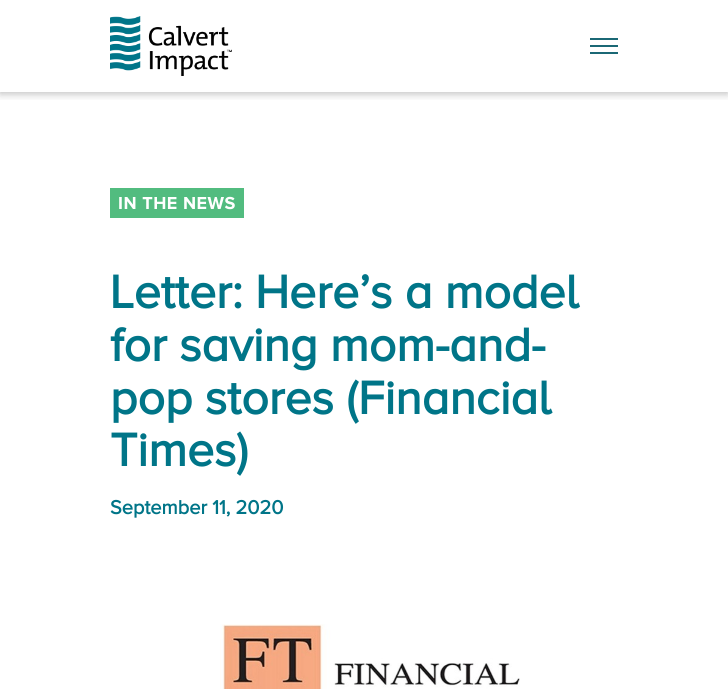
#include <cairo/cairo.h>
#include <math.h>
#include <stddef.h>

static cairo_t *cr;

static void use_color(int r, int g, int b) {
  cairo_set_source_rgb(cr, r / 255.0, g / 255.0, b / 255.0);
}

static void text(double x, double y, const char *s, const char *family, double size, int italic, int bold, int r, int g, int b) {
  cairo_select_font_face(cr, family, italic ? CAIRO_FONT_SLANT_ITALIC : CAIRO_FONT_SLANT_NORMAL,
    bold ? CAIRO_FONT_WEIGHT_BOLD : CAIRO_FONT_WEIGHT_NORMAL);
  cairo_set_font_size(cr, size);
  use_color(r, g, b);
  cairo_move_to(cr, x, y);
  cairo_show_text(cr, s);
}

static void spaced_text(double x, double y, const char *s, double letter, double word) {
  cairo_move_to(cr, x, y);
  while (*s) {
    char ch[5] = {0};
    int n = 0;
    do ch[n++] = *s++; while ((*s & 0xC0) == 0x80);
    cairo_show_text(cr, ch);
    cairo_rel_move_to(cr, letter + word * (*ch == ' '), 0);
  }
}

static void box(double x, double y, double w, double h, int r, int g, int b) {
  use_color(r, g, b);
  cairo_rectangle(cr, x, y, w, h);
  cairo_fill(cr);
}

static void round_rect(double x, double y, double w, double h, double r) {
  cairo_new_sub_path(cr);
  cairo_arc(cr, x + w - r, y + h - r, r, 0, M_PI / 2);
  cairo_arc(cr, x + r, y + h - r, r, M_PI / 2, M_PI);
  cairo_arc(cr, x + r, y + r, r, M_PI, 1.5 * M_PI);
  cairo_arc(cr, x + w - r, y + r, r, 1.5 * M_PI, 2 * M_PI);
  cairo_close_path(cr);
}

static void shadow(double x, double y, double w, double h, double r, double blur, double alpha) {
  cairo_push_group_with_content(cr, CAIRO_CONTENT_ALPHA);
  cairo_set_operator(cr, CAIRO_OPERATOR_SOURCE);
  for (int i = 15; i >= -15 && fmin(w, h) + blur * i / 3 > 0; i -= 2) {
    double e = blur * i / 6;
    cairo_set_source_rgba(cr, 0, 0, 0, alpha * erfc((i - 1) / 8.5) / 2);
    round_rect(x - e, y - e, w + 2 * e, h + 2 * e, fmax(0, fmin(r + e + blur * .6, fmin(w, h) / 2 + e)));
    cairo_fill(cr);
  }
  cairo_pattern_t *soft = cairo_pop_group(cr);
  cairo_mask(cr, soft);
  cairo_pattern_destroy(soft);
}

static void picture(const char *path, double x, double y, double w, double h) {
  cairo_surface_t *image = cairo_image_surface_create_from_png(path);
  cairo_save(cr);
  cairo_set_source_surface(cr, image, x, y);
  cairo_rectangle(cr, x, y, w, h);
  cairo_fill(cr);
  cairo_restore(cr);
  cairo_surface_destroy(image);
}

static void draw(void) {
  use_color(255, 255, 255);
  cairo_paint(cr);
  cairo_save(cr);
  cairo_rectangle(cr, 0, 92, 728, 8);
  cairo_clip(cr);
  use_color(0, 0, 0);
  shadow(0, 2, 728, 92, 0, 4, 0.25);
  cairo_restore(cr);
  picture("img_01.png", 110, 16, 122, 60);
  box(590, 38, 28, 2, 27, 104, 117);
  box(590, 45, 28, 2, 27, 104, 117);
  box(590, 52, 28, 2, 27, 104, 117);
  box(110, 188, 134, 30, 82, 188, 127);
  picture("img_02.png", 220, 624, 300, 65);
  cairo_select_font_face(cr, "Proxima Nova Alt", CAIRO_FONT_SLANT_NORMAL, CAIRO_FONT_WEIGHT_BOLD);
  cairo_set_font_size(cr, 18);
  use_color(255, 255, 255);
  spaced_text(118, 209, "IN THE NEWS", 0.5, 0);
  text(110, 308, "Letter: Here’s a model", "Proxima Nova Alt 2", 48, 0, 1, 0, 117, 136);
  text(110, 361, "for saving mom-and-", "Proxima Nova Alt 2", 48, 0, 1, 0, 117, 136);
  text(110, 414, "pop stores (Financial", "Proxima Nova Alt 2", 48, 0, 1, 0, 117, 136);
  text(110, 466, "Times)", "Proxima Nova Alt 2", 48, 0, 1, 0, 117, 136);
  text(110, 514, "September 11, 2020", "Proxima Nova Alt 2", 20, 0, 1, 0, 117, 136);
}

int main(void) {
  cairo_surface_t *surface = cairo_image_surface_create(CAIRO_FORMAT_RGB24, 728, 689);
  cr = cairo_create(surface);
  cairo_font_options_t *options = cairo_font_options_create();
  cairo_font_options_set_hint_metrics(options, CAIRO_HINT_METRICS_OFF);
  cairo_font_options_set_hint_style(options, CAIRO_HINT_STYLE_NONE);
  cairo_set_font_options(cr, options);
  cairo_set_miter_limit(cr, 4);
  draw();
  cairo_surface_write_to_png(surface, "out.png");
  cairo_font_options_destroy(options);
  cairo_destroy(cr);
  cairo_surface_destroy(surface);
  return 0;
}
